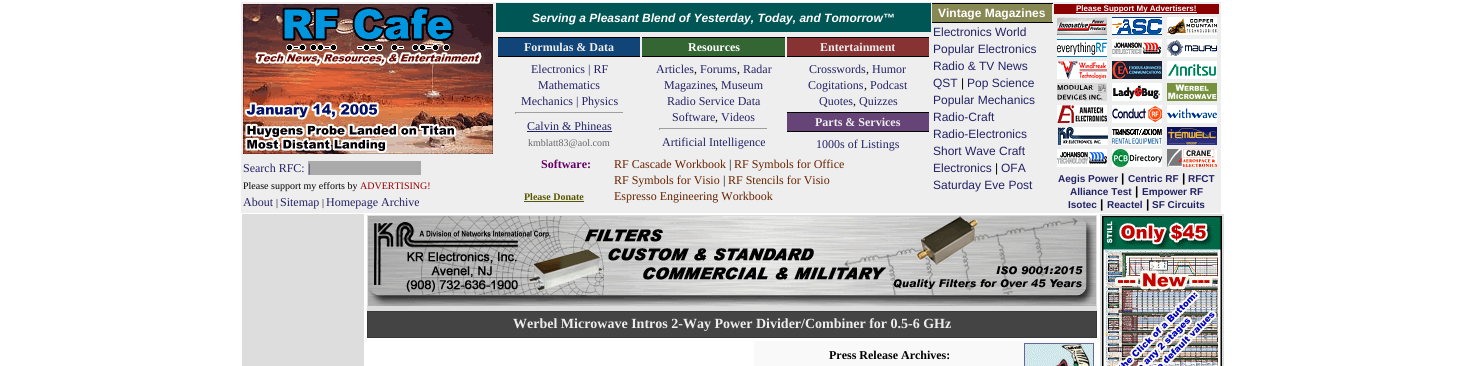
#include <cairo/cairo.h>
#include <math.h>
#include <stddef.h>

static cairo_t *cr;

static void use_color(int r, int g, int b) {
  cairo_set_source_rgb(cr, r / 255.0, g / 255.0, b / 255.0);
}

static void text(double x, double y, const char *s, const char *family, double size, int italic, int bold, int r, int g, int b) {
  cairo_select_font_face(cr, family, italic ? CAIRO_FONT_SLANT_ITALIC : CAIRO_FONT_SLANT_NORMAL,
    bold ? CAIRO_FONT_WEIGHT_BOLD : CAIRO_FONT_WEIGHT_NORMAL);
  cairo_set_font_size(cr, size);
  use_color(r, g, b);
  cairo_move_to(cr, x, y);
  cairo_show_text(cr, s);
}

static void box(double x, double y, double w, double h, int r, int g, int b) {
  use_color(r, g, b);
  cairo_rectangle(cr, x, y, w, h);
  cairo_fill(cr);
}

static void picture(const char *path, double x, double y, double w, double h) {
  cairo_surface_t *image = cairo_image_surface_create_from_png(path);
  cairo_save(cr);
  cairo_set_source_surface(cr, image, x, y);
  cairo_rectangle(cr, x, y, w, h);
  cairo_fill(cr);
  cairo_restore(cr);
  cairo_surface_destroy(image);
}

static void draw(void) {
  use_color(255, 255, 255);
  cairo_paint(cr);
  box(241, 2, 980, 211, 238, 238, 238);
  picture("img_01.png", 243, 4, 250, 150);
  box(308, 161, 113, 14, 170, 170, 170);
  box(496, 3, 435, 29, 0, 85, 85);
  box(932, 4, 120, 18, 136, 136, 85);
  box(932, 3, 121, 1, 0, 0, 0);
  box(932, 22, 121, 1, 0, 0, 0);
  box(1054, 4, 165, 10, 136, 0, 0);
  box(1076, 12, 121, 1, 255, 255, 255);
  picture("img_02.png", 1057, 17, 160, 150);
  box(498, 38, 142, 18, 17, 68, 119);
  box(498, 37, 142, 1, 0, 0, 0);
  box(498, 56, 142, 1, 0, 0, 0);
  box(515, 112, 109, 1, 159, 159, 159);
  box(623, 112, 1, 2, 238, 238, 238);
  box(515, 112, 1, 2, 159, 159, 159);
  box(527, 131, 85, 1, 34, 34, 102);
  box(642, 38, 143, 18, 51, 102, 51);
  box(642, 37, 143, 1, 0, 0, 0);
  box(642, 56, 143, 1, 0, 0, 0);
  box(659, 128, 109, 1, 159, 159, 159);
  box(767, 128, 1, 2, 238, 238, 238);
  box(659, 128, 1, 2, 159, 159, 159);
  box(787, 38, 142, 18, 136, 51, 51);
  box(787, 37, 142, 1, 0, 0, 0);
  box(787, 56, 142, 1, 0, 0, 0);
  box(787, 113, 142, 18, 102, 68, 119);
  box(787, 112, 142, 1, 0, 0, 0);
  box(787, 131, 142, 1, 0, 0, 0);
  box(524, 201, 60, 1, 85, 85, 0);
  box(242, 214, 122, 152, 221, 221, 221);
  box(367, 215, 730, 96, 221, 221, 221);
  picture("img_03.png", 368, 216, 728, 90);
  box(367, 311, 730, 27, 59, 57, 56);
  box(368, 312, 728, 25, 68, 68, 68);
  box(754, 341, 340, 25, 249, 249, 249);
  cairo_rectangle(cr, 1024.5, 343.5, 69, 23);
  use_color(102, 102, 153);
  cairo_set_line_width(cr, 1);
  cairo_stroke(cr);
  picture("img_04.png", 1025, 344, 68, 22);
  box(1100, 214, 124, 152, 221, 221, 221);
  picture("img_05.png", 1102, 216, 120, 150);
  text(243, 172, "Search RFC:", "Liberation Serif", 12, 0, 0, 34, 34, 102);
  text(308, 172, "|", "Liberation Serif", 12, 0, 0, 34, 34, 102);
  text(243, 189, "Please support my efforts by", "Liberation Serif", 10, 0, 0, 0, 0, 0);
  text(360, 189, "ADVERTISING!", "Liberation Serif", 10, 0, 0, 153, 0, 0);
  text(243, 206, "About", "Liberation Serif", 12, 0, 0, 34, 34, 102);
  text(276, 206, "|", "Liberation Serif", 10, 0, 0, 0, 0, 0);
  text(280, 206, "Sitemap", "Liberation Serif", 12, 0, 0, 34, 34, 102);
  text(322, 206, "|", "Liberation Serif", 10, 0, 0, 0, 0, 0);
  text(326, 206, "Homepage Archive", "Liberation Serif", 12, 0, 0, 34, 34, 102);
  text(532, 22, "Serving a Pleasant Blend of Yesterday, Today, and Tomorrow™", "Liberation Sans", 12, 1, 1, 255, 255, 255);
  text(938, 17, "Vintage Magazines", "Liberation Sans", 12, 0, 1, 255, 255, 255);
  text(933, 36, "Electronics World", "Liberation Sans", 12, 0, 0, 34, 34, 102);
  text(933, 53, "Popular Electronics", "Liberation Sans", 12, 0, 0, 34, 34, 102);
  text(933, 70, "Radio & TV News", "Liberation Sans", 12, 0, 0, 34, 34, 102);
  text(933, 87, "QST", "Liberation Sans", 12, 0, 0, 34, 34, 102);
  text(961, 87, "|", "Liberation Sans", 12, 0, 0, 0, 0, 0);
  text(967, 87, "Pop Science", "Liberation Sans", 12, 0, 0, 34, 34, 102);
  text(933, 104, "Popular Mechanics", "Liberation Sans", 12, 0, 0, 34, 34, 102);
  text(933, 121, "Radio-Craft", "Liberation Sans", 12, 0, 0, 34, 34, 102);
  text(933, 138, "Radio-Electronics", "Liberation Sans", 12, 0, 0, 34, 34, 102);
  text(933, 155, "Short Wave Craft", "Liberation Sans", 12, 0, 0, 34, 34, 102);
  text(933, 172, "Electronics", "Liberation Sans", 12, 0, 0, 34, 34, 102);
  text(995, 172, "|", "Liberation Sans", 12, 0, 0, 0, 0, 0);
  text(1001, 172, "OFA", "Liberation Sans", 12, 0, 0, 34, 34, 102);
  text(933, 189, "Saturday Eve Post", "Liberation Sans", 12, 0, 0, 34, 34, 102);
  text(1076, 11, "Please Support My Advertisers!", "Liberation Sans", 8, 0, 1, 255, 255, 255);
  text(1058, 182, "Aegis Power", "Liberation Sans", 10, 0, 1, 34, 34, 102);
  text(1121, 182, "|", "Liberation Sans", 12, 0, 1, 0, 0, 0);
  text(1128, 182, "Centric RF", "Liberation Sans", 10, 0, 1, 34, 34, 102);
  text(1182, 182, "|", "Liberation Sans", 12, 0, 1, 0, 0, 0);
  text(1188, 182, "RFCT", "Liberation Sans", 10, 0, 1, 34, 34, 102);
  text(1070, 195, "Alliance Test", "Liberation Sans", 10, 0, 1, 34, 34, 102);
  text(1135, 195, "|", "Liberation Sans", 12, 0, 1, 0, 0, 0);
  text(1142, 195, "Empower RF", "Liberation Sans", 10, 0, 1, 34, 34, 102);
  text(1068, 208, "Isotec", "Liberation Sans", 10, 0, 1, 34, 34, 102);
  text(1100, 208, "|", "Liberation Sans", 12, 0, 1, 0, 0, 0);
  text(1107, 208, "Reactel", "Liberation Sans", 10, 0, 1, 34, 34, 102);
  text(1146, 208, "|", "Liberation Sans", 12, 0, 1, 0, 0, 0);
  text(1152, 208, "SF Circuits", "Liberation Sans", 10, 0, 1, 34, 34, 102);
  text(524, 51, "Formulas & Data", "Liberation Serif", 12, 0, 1, 238, 238, 238);
  text(531, 73, "Electronics | RF", "Liberation Serif", 12, 0, 0, 34, 34, 102);
  text(538, 89, "Mathematics", "Liberation Serif", 12, 0, 0, 34, 34, 102);
  text(521, 105, "Mechanics | Physics", "Liberation Serif", 12, 0, 0, 34, 34, 102);
  text(527, 130, "Calvin & Phineas", "Liberation Serif", 12, 0, 0, 34, 34, 102);
  text(528, 146, "kmblatt83@aol.com", "Liberation Serif", 10, 0, 0, 102, 102, 102);
  text(688, 51, "Resources", "Liberation Serif", 12, 0, 1, 255, 255, 255);
  text(656, 73, "Articles", "Liberation Serif", 12, 0, 0, 34, 34, 102);
  text(694, 73, ",", "Liberation Serif", 12, 0, 0, 0, 0, 0);
  text(700, 73, "Forums", "Liberation Serif", 12, 0, 0, 34, 34, 102);
  text(737, 73, ",", "Liberation Serif", 12, 0, 0, 0, 0, 0);
  text(743, 73, "Radar", "Liberation Serif", 12, 0, 0, 34, 34, 102);
  text(664, 89, "Magazines", "Liberation Serif", 12, 0, 0, 34, 34, 102);
  text(715, 89, ",", "Liberation Serif", 12, 0, 0, 0, 0, 0);
  text(721, 89, "Museum", "Liberation Serif", 12, 0, 0, 34, 34, 102);
  text(667, 105, "Radio Service Data", "Liberation Serif", 12, 0, 0, 34, 34, 102);
  text(672, 121, "Software", "Liberation Serif", 12, 0, 0, 34, 34, 102);
  text(715, 121, ",", "Liberation Serif", 12, 0, 0, 0, 0, 0);
  text(721, 121, "Videos", "Liberation Serif", 12, 0, 0, 34, 34, 102);
  text(662, 146, "Artificial Intelligence", "Liberation Serif", 12, 0, 0, 34, 34, 102);
  text(820, 51, "Entertainment", "Liberation Serif", 12, 0, 1, 238, 238, 238);
  text(809, 73, "Crosswords", "Liberation Serif", 12, 0, 0, 34, 34, 102);
  text(866, 73, ",", "Liberation Serif", 12, 0, 0, 0, 0, 0);
  text(872, 73, "Humor", "Liberation Serif", 12, 0, 0, 34, 34, 102);
  text(808, 89, "Cogitations", "Liberation Serif", 12, 0, 0, 34, 34, 102);
  text(864, 89, ",", "Liberation Serif", 12, 0, 0, 0, 0, 0);
  text(870, 89, "Podcast", "Liberation Serif", 12, 0, 0, 34, 34, 102);
  text(819, 105, "Quotes", "Liberation Serif", 12, 0, 0, 34, 34, 102);
  text(853, 105, ",", "Liberation Serif", 12, 0, 0, 0, 0, 0);
  text(859, 105, "Quizzes", "Liberation Serif", 12, 0, 0, 34, 34, 102);
  text(815, 126, "Parts & Services", "Liberation Serif", 12, 0, 1, 238, 238, 238);
  text(816, 148, "1000s of Listings", "Liberation Serif", 12, 0, 0, 34, 34, 102);
  text(541, 168, "Software:", "Liberation Serif", 12, 0, 1, 102, 0, 102);
  text(524, 200, "Please Donate", "Liberation Serif", 10, 0, 1, 85, 85, 0);
  text(614, 168, "RF Cascade Workbook", "Liberation Serif", 12, 0, 0, 102, 34, 0);
  text(729, 168, "|", "Liberation Serif", 12, 0, 0, 0, 0, 0);
  text(734, 168, "RF Symbols for Office", "Liberation Serif", 12, 0, 0, 102, 34, 0);
  text(614, 184, "RF Symbols for Visio", "Liberation Serif", 12, 0, 0, 102, 34, 0);
  text(723, 184, "|", "Liberation Serif", 12, 0, 0, 0, 0, 0);
  text(728, 184, "RF Stencils for Visio", "Liberation Serif", 12, 0, 0, 102, 34, 0);
  text(614, 200, "Espresso Engineering Workbook", "Liberation Serif", 12, 0, 0, 102, 34, 0);
  text(513, 328, "Werbel Microwave Intros 2-Way Power Divider/Combiner for 0.5-6 GHz", "Liberation Serif", 14, 0, 1, 238, 238, 238);
  text(829, 359, "Press Release Archives:", "Liberation Serif", 12, 0, 1, 0, 0, 0);
}

int main(void) {
  cairo_surface_t *surface = cairo_image_surface_create(CAIRO_FORMAT_RGB24, 1466, 366);
  cr = cairo_create(surface);
  cairo_font_options_t *options = cairo_font_options_create();
  cairo_font_options_set_hint_metrics(options, CAIRO_HINT_METRICS_OFF);
  cairo_font_options_set_hint_style(options, CAIRO_HINT_STYLE_NONE);
  cairo_set_font_options(cr, options);
  cairo_set_miter_limit(cr, 4);
  draw();
  cairo_surface_write_to_png(surface, "out.png");
  cairo_font_options_destroy(options);
  cairo_destroy(cr);
  cairo_surface_destroy(surface);
  return 0;
}
